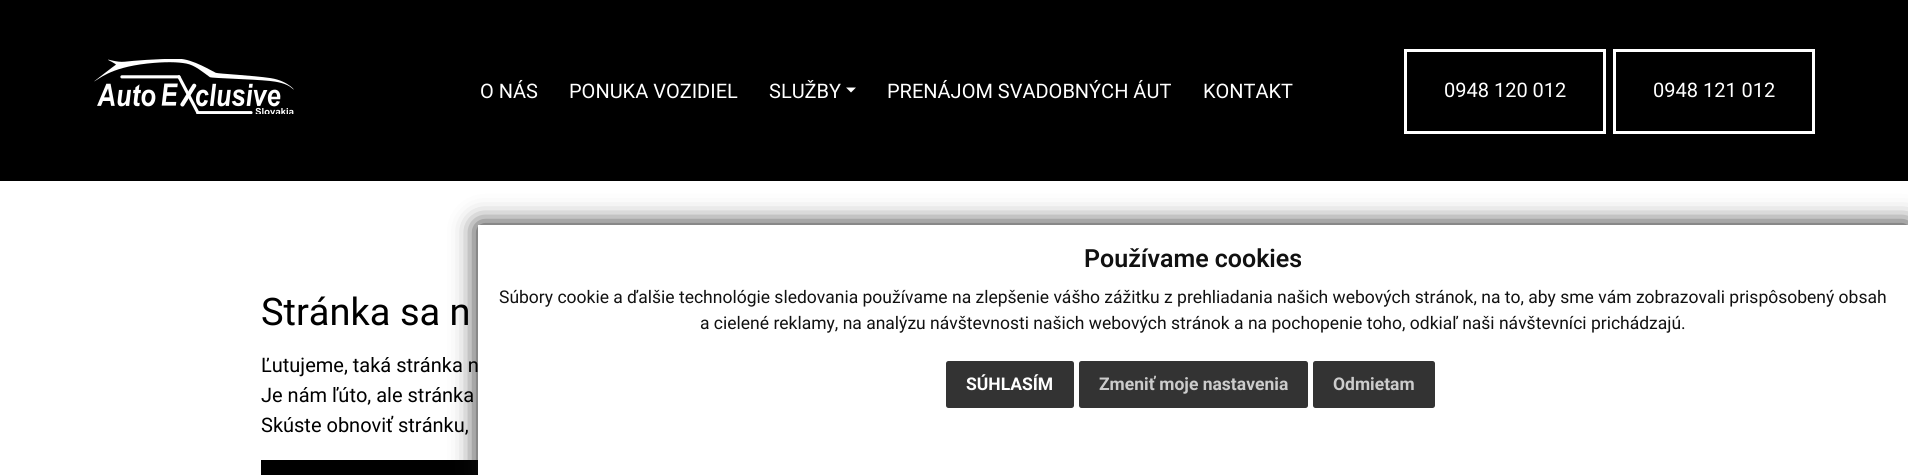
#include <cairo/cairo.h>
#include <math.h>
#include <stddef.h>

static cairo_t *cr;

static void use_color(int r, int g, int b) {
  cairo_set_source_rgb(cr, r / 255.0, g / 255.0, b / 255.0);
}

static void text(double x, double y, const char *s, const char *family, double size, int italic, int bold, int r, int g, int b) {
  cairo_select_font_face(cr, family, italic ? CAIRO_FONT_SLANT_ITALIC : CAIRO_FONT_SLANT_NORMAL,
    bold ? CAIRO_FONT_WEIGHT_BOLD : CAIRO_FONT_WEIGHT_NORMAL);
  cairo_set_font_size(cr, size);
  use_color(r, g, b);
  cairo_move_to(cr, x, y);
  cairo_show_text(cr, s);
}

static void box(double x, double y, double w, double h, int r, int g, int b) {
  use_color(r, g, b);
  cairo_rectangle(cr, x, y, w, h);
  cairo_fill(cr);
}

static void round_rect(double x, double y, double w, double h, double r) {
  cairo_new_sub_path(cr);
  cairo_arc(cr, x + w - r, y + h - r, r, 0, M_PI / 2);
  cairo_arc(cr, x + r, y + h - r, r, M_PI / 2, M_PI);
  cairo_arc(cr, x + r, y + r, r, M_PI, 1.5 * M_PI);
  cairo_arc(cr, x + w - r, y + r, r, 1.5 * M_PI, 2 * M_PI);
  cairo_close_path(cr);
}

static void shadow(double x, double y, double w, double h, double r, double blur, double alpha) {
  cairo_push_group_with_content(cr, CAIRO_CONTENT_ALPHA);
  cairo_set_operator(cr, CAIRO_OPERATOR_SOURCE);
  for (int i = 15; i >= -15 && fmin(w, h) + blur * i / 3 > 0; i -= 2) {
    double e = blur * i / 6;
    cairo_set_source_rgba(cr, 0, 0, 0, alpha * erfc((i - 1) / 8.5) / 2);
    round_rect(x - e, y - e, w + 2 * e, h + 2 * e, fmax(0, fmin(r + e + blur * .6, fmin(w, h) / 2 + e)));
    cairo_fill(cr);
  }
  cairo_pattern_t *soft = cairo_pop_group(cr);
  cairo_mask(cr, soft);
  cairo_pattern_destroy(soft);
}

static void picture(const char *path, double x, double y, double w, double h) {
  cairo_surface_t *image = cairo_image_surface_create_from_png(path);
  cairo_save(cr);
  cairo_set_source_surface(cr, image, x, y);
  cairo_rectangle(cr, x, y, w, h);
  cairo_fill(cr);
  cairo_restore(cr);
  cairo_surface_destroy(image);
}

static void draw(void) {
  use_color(255, 255, 255);
  cairo_paint(cr);
  box(0, 0, 1908, 181, 0, 0, 0);
  picture("img_01.png", 94, 59, 200, 55);
  use_color(255, 255, 255);
  cairo_new_path(cr);
  cairo_move_to(cr, 846, 87.5);
  cairo_line_to(cr, 856, 87.5);
  cairo_line_to(cr, 851, 92.5);
  cairo_close_path(cr);
  cairo_fill(cr);
  cairo_rectangle(cr, 1405.5, 50.5, 199, 82);
  cairo_set_line_width(cr, 3);
  cairo_stroke(cr);
  cairo_rectangle(cr, 1614.5, 50.5, 199, 82);
  cairo_stroke(cr);
  box(261, 460, 217, 15, 0, 0, 0);
  use_color(17, 17, 17);
  shadow(478, 225, 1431, 250, 0, 12.5, 1);
  box(478, 225, 1430, 250, 255, 255, 255);
  use_color(51, 51, 51);
  round_rect(946, 361, 128, 47, 2.5);
  cairo_fill(cr);
  round_rect(1079, 361, 229, 47, 2.5);
  cairo_fill(cr);
  round_rect(1313, 361, 122, 47, 2.5);
  cairo_fill(cr);
  text(480, 98, "O NÁS", "Roboto", 20, 0, 0, 255, 255, 255);
  text(569, 98, "PONUKA VOZIDIEL", "Roboto", 20, 0, 0, 255, 255, 255);
  text(769, 98, "SLUŽBY", "Roboto", 20, 0, 0, 255, 255, 255);
  text(887, 98, "PRENÁJOM SVADOBNÝCH ÁUT", "Roboto", 20, 0, 0, 255, 255, 255);
  text(1203, 98, "KONTAKT", "Roboto", 20, 0, 0, 255, 255, 255);
  text(1444, 97, "0948 120 012", "Roboto", 20, 0, 0, 255, 255, 255);
  text(1653, 97, "0948 121 012", "Roboto", 20, 0, 0, 255, 255, 255);
  text(261, 325, "Stránka sa n", "Roboto", 38, 0, 0, 0, 0, 0);
  text(261, 372, "Ľutujeme, taká stránka n", "Roboto", 20, 0, 0, 0, 0, 0);
  text(261, 402, "Je nám ľúto, ale stránka", "Roboto", 20, 0, 0, 0, 0, 0);
  text(261, 432, "Skúste obnoviť stránku,", "Roboto", 20, 0, 0, 0, 0, 0);
  text(1084, 267, "Používame cookies", "Roboto SemiBold", 25, 0, 0, 17, 17, 17);
  text(499, 303, "Súbory cookie a ďalšie technológie sledovania používame na zlepšenie vášho zážitku z prehliadania našich webových stránok, na to, aby sme vám zobrazovali prispôsobený obsah", "Roboto", 17.5, 0, 0, 17, 17, 17);
  text(700, 329, "a cielené reklamy, na analýzu návštevnosti našich webových stránok a na pochopenie toho, odkiaľ naši návštevníci prichádzajú.", "Roboto", 17.5, 0, 0, 17, 17, 17);
  text(966, 390, "SÚHLASÍM", "Roboto", 17.5, 0, 1, 255, 255, 255);
  text(1099, 390, "Zmeniť moje nastavenia", "Roboto", 17.5, 0, 1, 204, 204, 204);
  text(1333, 390, "Odmietam", "Roboto", 17.5, 0, 1, 204, 204, 204);
}

int main(void) {
  cairo_surface_t *surface = cairo_image_surface_create(CAIRO_FORMAT_RGB24, 1908, 475);
  cr = cairo_create(surface);
  cairo_font_options_t *options = cairo_font_options_create();
  cairo_font_options_set_hint_metrics(options, CAIRO_HINT_METRICS_OFF);
  cairo_font_options_set_hint_style(options, CAIRO_HINT_STYLE_NONE);
  cairo_set_font_options(cr, options);
  cairo_set_miter_limit(cr, 4);
  draw();
  cairo_surface_write_to_png(surface, "out.png");
  cairo_font_options_destroy(options);
  cairo_destroy(cr);
  cairo_surface_destroy(surface);
  return 0;
}
